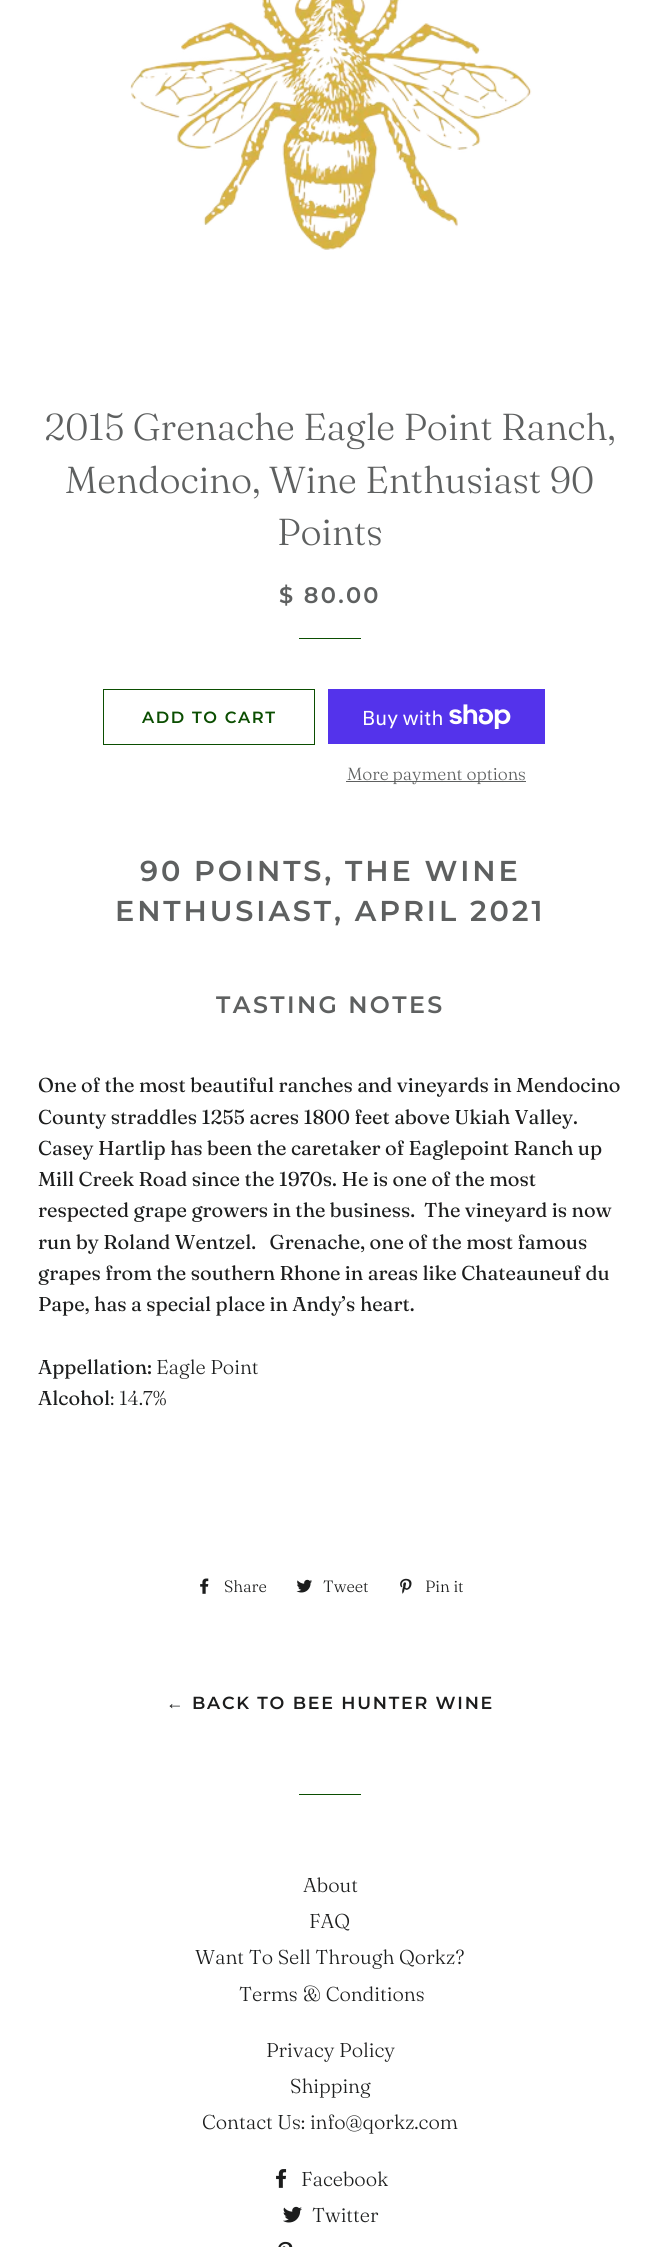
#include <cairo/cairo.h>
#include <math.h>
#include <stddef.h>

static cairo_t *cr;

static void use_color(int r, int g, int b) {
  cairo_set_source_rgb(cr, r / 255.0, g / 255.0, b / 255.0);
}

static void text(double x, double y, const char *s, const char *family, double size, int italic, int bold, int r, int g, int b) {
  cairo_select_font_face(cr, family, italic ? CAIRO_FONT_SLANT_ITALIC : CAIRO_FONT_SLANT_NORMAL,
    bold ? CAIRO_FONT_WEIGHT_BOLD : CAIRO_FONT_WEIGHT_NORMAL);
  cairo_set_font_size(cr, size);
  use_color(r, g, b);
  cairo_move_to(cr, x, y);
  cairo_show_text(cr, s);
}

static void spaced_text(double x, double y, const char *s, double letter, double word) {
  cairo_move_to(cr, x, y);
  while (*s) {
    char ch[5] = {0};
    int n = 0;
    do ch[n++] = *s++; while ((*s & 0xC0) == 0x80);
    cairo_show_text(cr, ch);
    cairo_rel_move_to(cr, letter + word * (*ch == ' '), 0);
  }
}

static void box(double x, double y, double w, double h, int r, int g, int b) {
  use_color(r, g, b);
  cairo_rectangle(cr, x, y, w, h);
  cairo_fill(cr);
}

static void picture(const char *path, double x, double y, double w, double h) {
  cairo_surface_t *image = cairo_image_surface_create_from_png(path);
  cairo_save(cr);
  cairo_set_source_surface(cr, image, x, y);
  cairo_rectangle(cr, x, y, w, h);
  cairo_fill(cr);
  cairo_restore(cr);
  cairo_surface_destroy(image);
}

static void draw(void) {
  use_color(255, 255, 255);
  cairo_paint(cr);
  picture("img_01.png", 130, 0, 402, 250);
  box(299, 638, 62, 1, 11, 78, 1);
  cairo_rectangle(cr, 103.5, 689.5, 211, 55);
  cairo_set_line_width(cr, 1);
  cairo_stroke(cr);
  box(328, 689, 217, 55, 84, 51, 235);
  picture("img_02.png", 449, 704, 62, 25);
  box(346, 781, 180, 1, 94, 96, 96);
  picture("img_03.png", 200, 1578, 9, 16);
  picture("img_04.png", 296, 1579, 16, 14);
  picture("img_05.png", 400, 1578, 12, 16);
  box(299, 1794, 62, 1, 11, 78, 1);
  picture("img_06.png", 276, 2169, 11, 19);
  picture("img_07.png", 283, 2206, 19, 17);
  picture("img_08.png", 278, 2241, 15, 6);
  text(44, 440, "2015 Grenache Eagle Point Ranch,", "Fraunces Light", 37.5, 0, 0, 94, 96, 96);
  text(65, 493, "Mendocino, Wine Enthusiast 90", "Fraunces Light", 37.5, 0, 0, 94, 96, 96);
  text(277, 545, "Points", "Fraunces Light", 37.5, 0, 0, 94, 96, 96);
  cairo_select_font_face(cr, "Montserrat SemiBold", CAIRO_FONT_SLANT_NORMAL, CAIRO_FONT_WEIGHT_NORMAL);
  cairo_set_font_size(cr, 22.5);
  spaced_text(279, 603, "$ 80.00", 2.25, 0);
  cairo_set_font_size(cr, 16.25);
  use_color(11, 78, 1);
  spaced_text(142, 723, "ADD TO CART", 1.6, 0);
  text(362, 725, "Buy with", "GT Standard", 20, 0, 0, 255, 255, 255);
  text(347, 780, "More payment options", "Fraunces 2 Light", 17.5, 0, 0, 94, 96, 96);
  cairo_select_font_face(cr, "Montserrat SemiBold", CAIRO_FONT_SLANT_NORMAL, CAIRO_FONT_WEIGHT_NORMAL);
  cairo_set_font_size(cr, 28.75);
  spaced_text(140, 881, "90 POINTS, THE WINE", 2.9, 0);
  spaced_text(115, 921, "ENTHUSIAST, APRIL 2021", 2.9, 0);
  cairo_set_font_size(cr, 23.75);
  spaced_text(216, 1013, "TASTING NOTES", 2.4, 0);
  text(38, 1092, "One of the most beautiful ranches and vineyards in Mendocino", "Fraunces", 20, 0, 0, 28, 29, 29);
  text(38, 1124, "County straddles 1255 acres 1800 feet above Ukiah Valley.", "Fraunces", 20, 0, 0, 28, 29, 29);
  text(38, 1155, "Casey Hartlip has been the caretaker of Eaglepoint Ranch up", "Fraunces", 20, 0, 0, 28, 29, 29);
  text(38, 1186, "Mill Creek Road since the 1970s. He is one of the most", "Fraunces", 20, 0, 0, 28, 29, 29);
  text(38, 1217, "respected grape growers in the business.  The vineyard is now", "Fraunces", 20, 0, 0, 28, 29, 29);
  text(38, 1249, "run by Roland Wentzel.   Grenache, one of the most famous", "Fraunces", 20, 0, 0, 28, 29, 29);
  text(38, 1280, "grapes from the southern Rhone in areas like Chateauneuf du", "Fraunces", 20, 0, 0, 28, 29, 29);
  text(38, 1311, "Pape, has a special place in Andy’s heart.", "Fraunces", 20, 0, 0, 28, 29, 29);
  text(38, 1374, "Appellation:", "Fraunces", 20, 0, 0, 28, 29, 29);
  text(156, 1374, "Eagle Point", "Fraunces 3 Light", 20, 0, 0, 28, 29, 29);
  text(38, 1405, "Alcohol", "Fraunces", 20, 0, 0, 28, 29, 29);
  text(110, 1405, ": 14.7%", "Fraunces 3 Light", 20, 0, 0, 28, 29, 29);
  text(224, 1592, "Share", "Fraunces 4 Light", 16.25, 0, 0, 28, 29, 29);
  text(323, 1592, "Tweet", "Fraunces 4 Light", 16.25, 0, 0, 28, 29, 29);
  text(425, 1592, "Pin it", "Fraunces 4 Light", 16.25, 0, 0, 28, 29, 29);
  cairo_select_font_face(cr, "Liberation Sans", CAIRO_FONT_SLANT_NORMAL, CAIRO_FONT_WEIGHT_BOLD);
  cairo_set_font_size(cr, 17.5);
  spaced_text(166, 1709, "←", 1.75, 0);
  cairo_select_font_face(cr, "Montserrat SemiBold", CAIRO_FONT_SLANT_NORMAL, CAIRO_FONT_WEIGHT_NORMAL);
  spaced_text(192, 1709, "BACK TO BEE HUNTER WINE", 1.75, 0);
  text(303, 1892, "About", "Fraunces 3 Light", 20, 0, 0, 28, 29, 29);
  text(309, 1928, "FAQ", "Fraunces 3 Light", 20, 0, 0, 28, 29, 29);
  text(195, 1964, "Want To Sell Through Qorkz?", "Fraunces 3 Light", 20, 0, 0, 28, 29, 29);
  text(239, 2001, "Terms & Conditions", "Fraunces 3 Light", 20, 0, 0, 28, 29, 29);
  text(266, 2057, "Privacy Policy", "Fraunces 3 Light", 20, 0, 0, 28, 29, 29);
  text(290, 2093, "Shipping", "Fraunces 3 Light", 20, 0, 0, 28, 29, 29);
  text(202, 2129, "Contact Us: info@qorkz.com", "Fraunces 3 Light", 20, 0, 0, 28, 29, 29);
  text(301, 2186, "Facebook", "Fraunces 3 Light", 20, 0, 0, 28, 29, 29);
  text(312, 2222, "Twitter", "Fraunces 3 Light", 20, 0, 0, 28, 29, 29);
}

int main(void) {
  cairo_surface_t *surface = cairo_image_surface_create(CAIRO_FORMAT_RGB24, 660, 2247);
  cr = cairo_create(surface);
  cairo_font_options_t *options = cairo_font_options_create();
  cairo_font_options_set_hint_metrics(options, CAIRO_HINT_METRICS_OFF);
  cairo_font_options_set_hint_style(options, CAIRO_HINT_STYLE_NONE);
  cairo_set_font_options(cr, options);
  cairo_set_miter_limit(cr, 4);
  draw();
  cairo_surface_write_to_png(surface, "out.png");
  cairo_font_options_destroy(options);
  cairo_destroy(cr);
  cairo_surface_destroy(surface);
  return 0;
}
